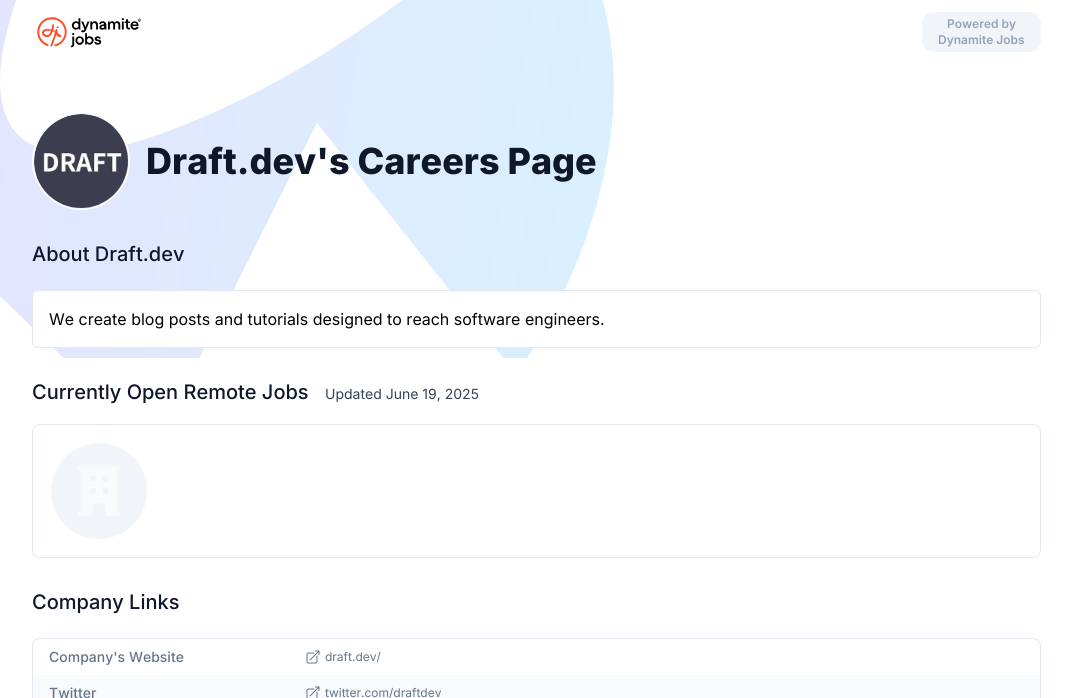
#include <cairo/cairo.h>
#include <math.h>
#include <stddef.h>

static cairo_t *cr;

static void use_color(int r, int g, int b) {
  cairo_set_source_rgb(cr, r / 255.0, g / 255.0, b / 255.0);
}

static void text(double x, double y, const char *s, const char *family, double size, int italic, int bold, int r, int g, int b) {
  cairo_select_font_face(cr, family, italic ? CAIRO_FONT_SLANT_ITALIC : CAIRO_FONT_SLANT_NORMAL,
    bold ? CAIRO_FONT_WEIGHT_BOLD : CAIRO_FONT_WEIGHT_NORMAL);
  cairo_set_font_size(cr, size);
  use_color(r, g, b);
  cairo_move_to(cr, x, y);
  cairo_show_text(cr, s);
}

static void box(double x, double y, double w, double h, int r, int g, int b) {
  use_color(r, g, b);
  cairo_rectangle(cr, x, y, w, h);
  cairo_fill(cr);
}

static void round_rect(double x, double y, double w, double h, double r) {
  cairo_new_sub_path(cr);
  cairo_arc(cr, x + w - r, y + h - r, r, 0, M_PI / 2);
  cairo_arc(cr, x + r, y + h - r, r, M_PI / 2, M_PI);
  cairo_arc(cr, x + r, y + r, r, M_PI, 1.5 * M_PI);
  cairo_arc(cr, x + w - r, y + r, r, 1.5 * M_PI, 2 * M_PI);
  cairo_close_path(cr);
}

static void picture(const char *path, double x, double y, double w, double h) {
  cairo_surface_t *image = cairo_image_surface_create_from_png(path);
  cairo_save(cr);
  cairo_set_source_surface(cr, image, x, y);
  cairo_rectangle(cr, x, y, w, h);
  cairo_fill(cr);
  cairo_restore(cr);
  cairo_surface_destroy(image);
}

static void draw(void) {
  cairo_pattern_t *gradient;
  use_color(255, 255, 255);
  cairo_paint(cr);
  cairo_save(cr);
  cairo_rectangle(cr, 0, 0, 1073, 358);
  cairo_clip(cr);
  gradient = cairo_pattern_create_linear(727, 15, -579, -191);
  cairo_pattern_add_color_stop_rgba(gradient, 0, 0.847, 0.949, 0.996, 1);
  cairo_pattern_add_color_stop_rgba(gradient, 1, 0.925, 0.855, 0.996, 1);
  cairo_set_source(cr, gradient);
  cairo_pattern_destroy(gradient);
  cairo_set_fill_rule(cr, CAIRO_FILL_RULE_EVEN_ODD);
  cairo_new_path(cr);
  cairo_move_to(cr, -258, 45);
  cairo_line_to(cr, 62, -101);
  cairo_curve_to(cr, -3, 14, -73, 222, 171, 130);
  cairo_curve_to(cr, 297, 82, 382, 16, 442, -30);
  cairo_curve_to(cr, 494, -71, 527, -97, 554, -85);
  cairo_line_to(cr, 561, -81);
  cairo_curve_to(cr, 575, -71, 587, -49, 599, -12);
  cairo_curve_to(cr, 637, 107, 595, 234, 552, 315);
  cairo_line_to(cr, 532, 351);
  cairo_line_to(cr, 516, 374);
  cairo_line_to(cr, 317, 123);
  cairo_line_to(cr, 155, 447);
  cairo_close_path(cr);
  cairo_move_to(cr, -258, 45);
  cairo_line_to(cr, -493, -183);
  cairo_line_to(cr, -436, 126);
  cairo_close_path(cr);
  cairo_fill(cr);
  cairo_restore(cr);
  picture("img_01.png", 37, 17, 104, 31);
  use_color(241, 245, 249);
  round_rect(922, 12, 119, 40, 12);
  cairo_fill(cr);
  cairo_arc(cr, 81, 161, 48, 0, 2 * M_PI);
  use_color(255, 255, 255);
  cairo_stroke(cr);
  use_color(248, 250, 252);
  cairo_arc(cr, 81, 161, 47.5, 0, 2 * M_PI);
  cairo_fill_preserve(cr);
  use_color(241, 245, 249);
  cairo_set_line_width(cr, 1);
  cairo_stroke(cr);
  picture("img_02.png", 34, 114, 94, 94);
  use_color(255, 255, 255);
  round_rect(32.5, 290.5, 1008, 57, 5.5);
  cairo_fill_preserve(cr);
  use_color(226, 232, 240);
  cairo_stroke(cr);
  round_rect(32.5, 424.5, 1008, 133, 7.5);
  cairo_stroke(cr);
  use_color(241, 245, 249);
  cairo_arc(cr, 99, 491, 47.5, 0, 2 * M_PI);
  cairo_fill_preserve(cr);
  cairo_stroke(cr);
  picture("img_03.png", 77, 466, 44, 50);
  round_rect(32.5, 638.5, 1008, 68, 7.5);
  use_color(226, 232, 240);
  cairo_stroke(cr);
  picture("img_04.png", 306, 650, 14, 14);
  box(33, 675, 1007, 23, 248, 250, 252);
  picture("img_05.png", 306, 686, 14, 12);
  text(947, 28, "Powered by", "Inter SemiBold", 12, 0, 0, 148, 163, 184);
  text(938, 44, "Dynamite Jobs", "Inter SemiBold", 12, 0, 0, 148, 163, 184);
  text(146, 174, "Draft.dev's Careers Page", "Inter ExtraBold", 36, 0, 0, 15, 23, 42);
  text(32, 261, "About Draft.dev", "Inter Medium", 20, 0, 0, 15, 23, 42);
  text(49, 325, "We create blog posts and tutorials designed to reach software engineers.", "Inter", 16, 0, 0, 0, 0, 0);
  text(32, 399, "Currently Open Remote Jobs", "Inter Medium", 20, 0, 0, 15, 23, 42);
  text(325, 399, "Updated June 19, 2025", "Inter", 14, 0, 0, 51, 65, 85);
  text(32, 609, "Company Links", "Inter Medium", 20, 0, 0, 15, 23, 42);
  text(49, 662, "Company's Website", "Inter Medium", 14, 0, 0, 100, 116, 139);
  text(325, 661, "draft.dev/", "Inter", 12, 0, 0, 100, 116, 139);
  text(49, 698, "Twitter", "Inter Medium", 14, 0, 0, 100, 116, 139);
  text(325, 697, "twitter.com/draftdev", "Inter", 12, 0, 0, 100, 116, 139);
}

int main(void) {
  cairo_surface_t *surface = cairo_image_surface_create(CAIRO_FORMAT_RGB24, 1073, 698);
  cr = cairo_create(surface);
  cairo_font_options_t *options = cairo_font_options_create();
  cairo_font_options_set_hint_metrics(options, CAIRO_HINT_METRICS_OFF);
  cairo_font_options_set_hint_style(options, CAIRO_HINT_STYLE_NONE);
  cairo_set_font_options(cr, options);
  cairo_set_miter_limit(cr, 4);
  draw();
  cairo_surface_write_to_png(surface, "out.png");
  cairo_font_options_destroy(options);
  cairo_destroy(cr);
  cairo_surface_destroy(surface);
  return 0;
}
